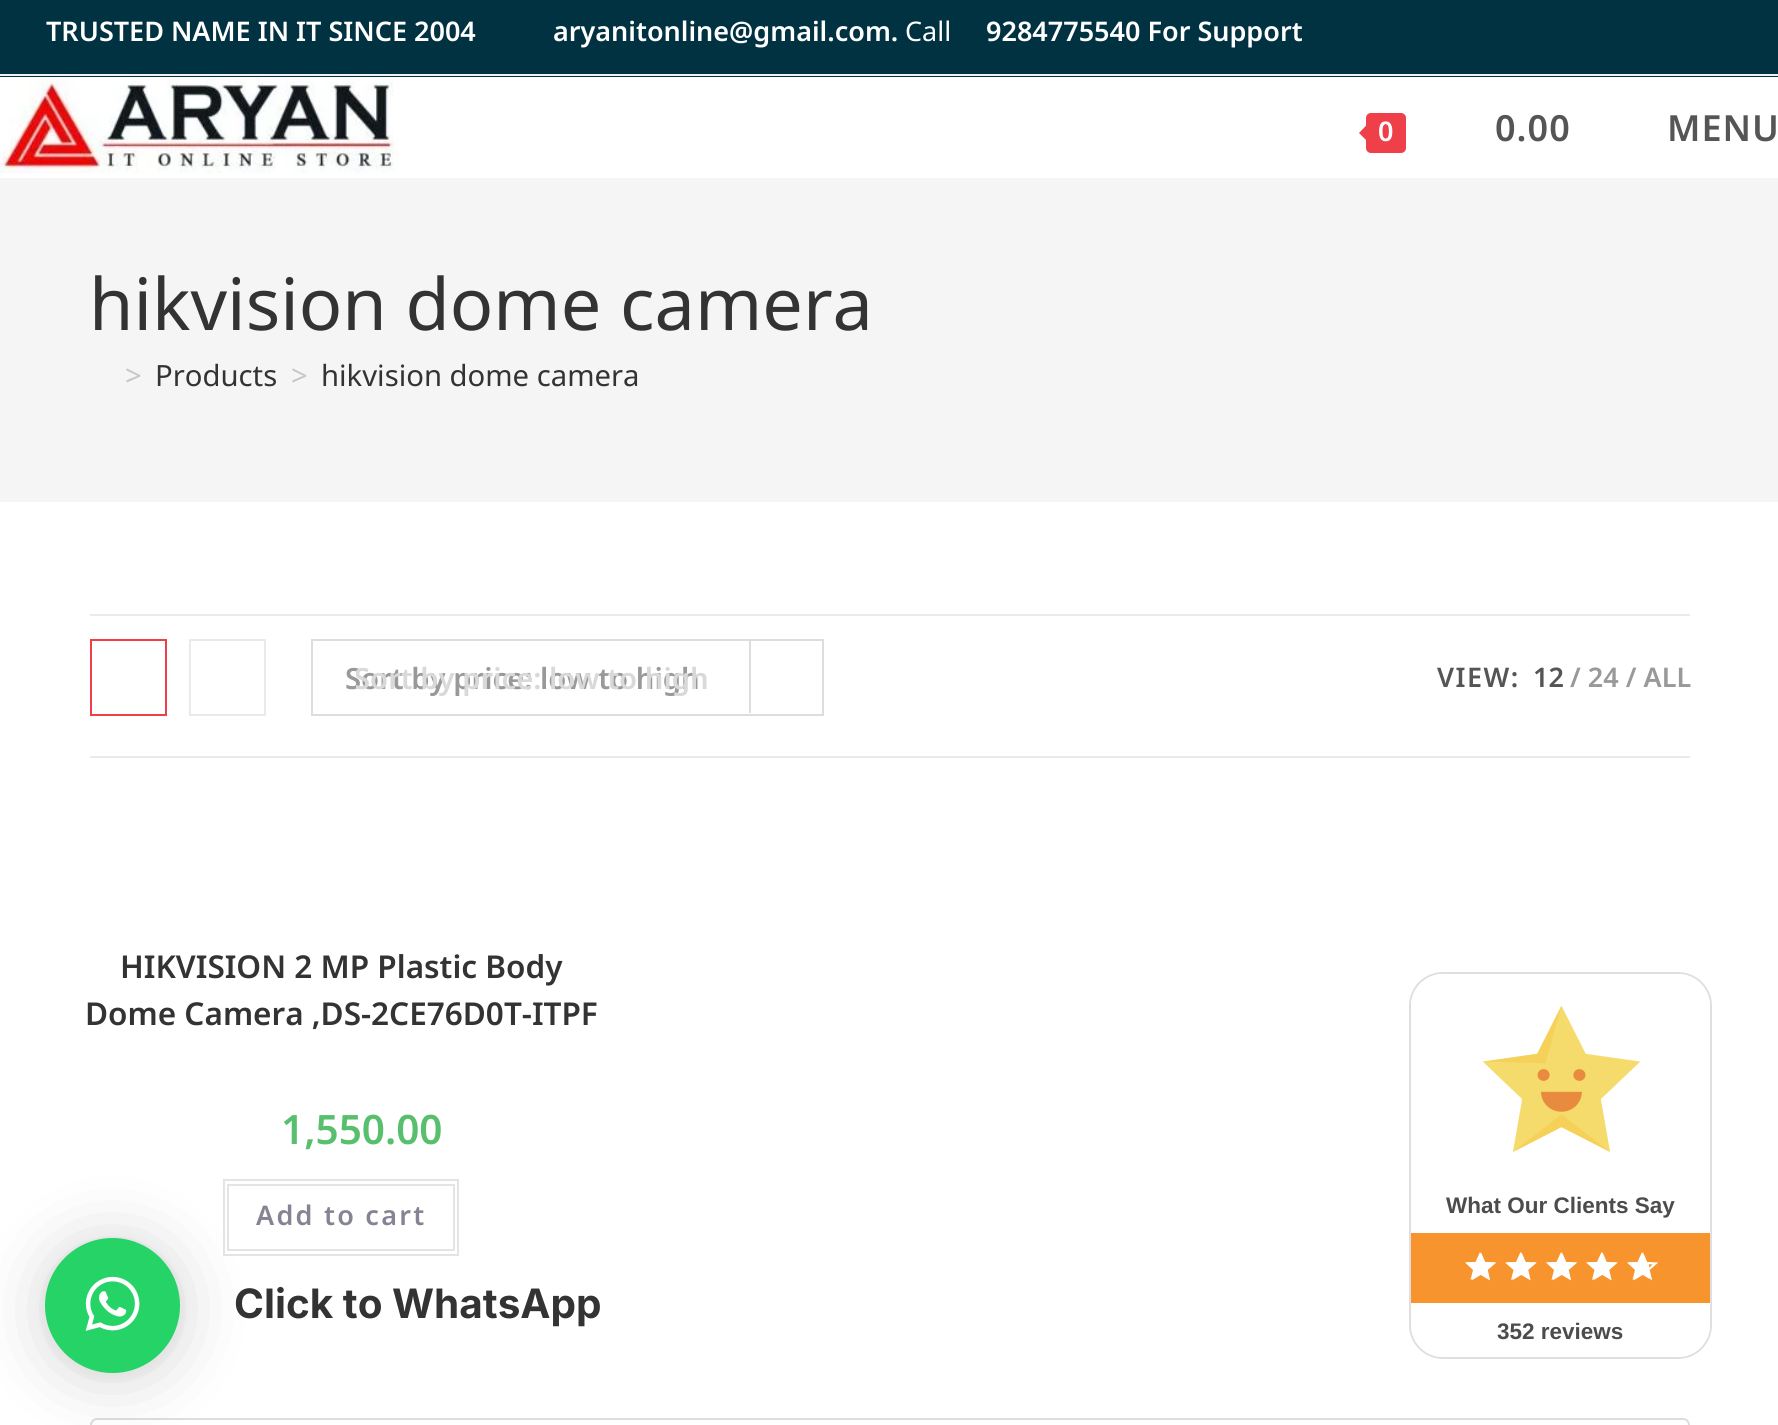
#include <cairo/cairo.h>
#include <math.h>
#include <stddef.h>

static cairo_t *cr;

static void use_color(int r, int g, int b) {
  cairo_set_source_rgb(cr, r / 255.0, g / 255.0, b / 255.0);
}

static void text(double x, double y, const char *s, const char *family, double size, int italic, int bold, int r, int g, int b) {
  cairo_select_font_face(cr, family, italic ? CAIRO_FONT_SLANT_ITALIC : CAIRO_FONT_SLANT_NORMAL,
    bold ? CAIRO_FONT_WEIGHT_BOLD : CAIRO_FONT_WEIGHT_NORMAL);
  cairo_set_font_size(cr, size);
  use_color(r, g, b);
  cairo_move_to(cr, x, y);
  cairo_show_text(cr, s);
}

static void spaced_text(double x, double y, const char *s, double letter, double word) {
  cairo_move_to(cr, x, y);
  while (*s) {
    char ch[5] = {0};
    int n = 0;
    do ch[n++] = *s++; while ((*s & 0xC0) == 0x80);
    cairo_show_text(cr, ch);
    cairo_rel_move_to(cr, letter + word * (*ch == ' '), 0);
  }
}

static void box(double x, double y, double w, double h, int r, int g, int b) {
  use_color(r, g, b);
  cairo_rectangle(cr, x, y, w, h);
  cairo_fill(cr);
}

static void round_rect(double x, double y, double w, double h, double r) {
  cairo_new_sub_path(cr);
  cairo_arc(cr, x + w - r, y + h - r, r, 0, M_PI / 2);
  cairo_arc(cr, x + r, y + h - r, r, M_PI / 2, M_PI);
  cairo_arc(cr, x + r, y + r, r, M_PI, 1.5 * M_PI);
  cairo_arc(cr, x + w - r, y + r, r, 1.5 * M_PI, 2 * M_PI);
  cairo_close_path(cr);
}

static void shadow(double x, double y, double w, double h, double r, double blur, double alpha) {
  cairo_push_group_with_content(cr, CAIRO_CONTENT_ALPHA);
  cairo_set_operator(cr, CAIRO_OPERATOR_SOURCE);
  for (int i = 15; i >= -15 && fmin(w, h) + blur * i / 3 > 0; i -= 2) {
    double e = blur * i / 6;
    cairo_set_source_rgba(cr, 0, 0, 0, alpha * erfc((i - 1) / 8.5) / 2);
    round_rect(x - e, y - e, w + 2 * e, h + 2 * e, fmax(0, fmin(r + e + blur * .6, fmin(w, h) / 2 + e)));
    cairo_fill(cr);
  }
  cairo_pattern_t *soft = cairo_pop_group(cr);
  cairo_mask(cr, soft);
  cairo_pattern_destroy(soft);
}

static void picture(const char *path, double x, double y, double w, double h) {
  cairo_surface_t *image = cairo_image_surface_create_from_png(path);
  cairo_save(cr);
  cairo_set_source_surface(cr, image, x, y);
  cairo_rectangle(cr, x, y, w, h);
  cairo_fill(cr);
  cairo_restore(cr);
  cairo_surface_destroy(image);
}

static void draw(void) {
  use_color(255, 255, 255);
  cairo_paint(cr);
  box(0, 0, 1778, 77, 1, 50, 65);
  box(0, 74, 1778, 2, 241, 241, 241);
  picture("img_01.png", 0, 77, 398, 97);
  use_color(239, 63, 73);
  round_rect(1366, 113, 40, 40, 5);
  cairo_fill(cr);
  cairo_new_path(cr);
  cairo_move_to(cr, 1370, 121.5);
  cairo_line_to(cr, 1370, 144);
  cairo_line_to(cr, 1359, 133);
  cairo_close_path(cr);
  cairo_fill(cr);
  box(0, 178, 1778, 324, 245, 245, 245);
  box(90, 614, 1600, 2, 234, 234, 234);
  box(90, 756, 1600, 2, 234, 234, 234);
  cairo_rectangle(cr, 91, 640, 75, 75);
  use_color(239, 63, 73);
  cairo_stroke(cr);
  cairo_rectangle(cr, 190, 640, 75, 75);
  use_color(234, 234, 234);
  cairo_stroke(cr);
  cairo_rectangle(cr, 312, 640, 511, 75);
  use_color(221, 221, 221);
  cairo_stroke(cr);
  box(749, 641, 2, 72, 221, 221, 221);
  cairo_rectangle(cr, 224, 1180, 234, 75);
  use_color(228, 228, 228);
  cairo_stroke(cr);
  cairo_rectangle(cr, 228, 1185, 226, 65);
  cairo_stroke(cr);
  round_rect(91, 1419, 1598, 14, 6);
  use_color(221, 221, 221);
  cairo_stroke(cr);
  use_color(0, 0, 0);
  shadow(45, 1242, 135, 135, 67.5, 36, 0.16);
  shadow(45, 1240, 135, 135, 67.5, 7, 0.06);
  use_color(37, 211, 102);
  cairo_arc(cr, 112.5, 1305.5, 67.5, 0, 2 * M_PI);
  cairo_fill(cr);
  picture("img_02.png", 85, 1276, 55, 55);
  round_rect(1410, 973, 301, 385, 33);
  use_color(223, 223, 223);
  cairo_stroke(cr);
  use_color(255, 255, 255);
  cairo_new_path(cr);
  cairo_move_to(cr, 1443, 974);
  cairo_line_to(cr, 1678, 974);
  cairo_curve_to(cr, 1695.5, 974, 1710, 988.5, 1710, 1006);
  cairo_line_to(cr, 1710, 1233);
  cairo_line_to(cr, 1411, 1233);
  cairo_line_to(cr, 1411, 1006);
  cairo_curve_to(cr, 1411, 988.5, 1425.5, 974, 1443, 974);
  cairo_close_path(cr);
  cairo_fill(cr);
  box(1411, 1233, 299, 70, 248, 148, 45);
  use_color(255, 255, 255);
  cairo_new_path(cr);
  cairo_move_to(cr, 1411, 1303);
  cairo_line_to(cr, 1710, 1303);
  cairo_line_to(cr, 1710, 1325);
  cairo_curve_to(cr, 1710, 1342.5, 1695.5, 1357, 1678, 1357);
  cairo_line_to(cr, 1443, 1357);
  cairo_curve_to(cr, 1425.5, 1357, 1411, 1342.5, 1411, 1325);
  cairo_close_path(cr);
  cairo_fill(cr);
  picture("img_03.png", 1483, 1006, 157, 146);
  cairo_new_path(cr);
  cairo_move_to(cr, 1481.5, 1273.5);
  cairo_line_to(cr, 1481, 1273.5);
  cairo_line_to(cr, 1473.5, 1278);
  cairo_line_to(cr, 1475.5, 1269.5);
  cairo_line_to(cr, 1468.5, 1263.5);
  cairo_line_to(cr, 1477.5, 1263);
  cairo_line_to(cr, 1481, 1255);
  cairo_line_to(cr, 1484.5, 1263);
  cairo_line_to(cr, 1493.5, 1263.5);
  cairo_line_to(cr, 1486.5, 1269.5);
  cairo_line_to(cr, 1488.5, 1278);
  cairo_close_path(cr);
  cairo_set_line_width(cr, 2.2);
  cairo_stroke(cr);
  cairo_new_path(cr);
  cairo_move_to(cr, 1480, 1274.5);
  cairo_line_to(cr, 1489.5, 1280);
  cairo_line_to(cr, 1487, 1270);
  cairo_line_to(cr, 1495.5, 1262.5);
  cairo_line_to(cr, 1484.5, 1262);
  cairo_line_to(cr, 1480, 1252);
  cairo_line_to(cr, 1475.5, 1262);
  cairo_line_to(cr, 1465, 1262.5);
  cairo_line_to(cr, 1473, 1270);
  cairo_line_to(cr, 1470.5, 1280);
  cairo_close_path(cr);
  cairo_fill(cr);
  cairo_new_path(cr);
  cairo_move_to(cr, 1522, 1273.5);
  cairo_line_to(cr, 1521.5, 1273.5);
  cairo_line_to(cr, 1514, 1278);
  cairo_line_to(cr, 1516, 1269.5);
  cairo_line_to(cr, 1509, 1263.5);
  cairo_line_to(cr, 1518, 1263);
  cairo_line_to(cr, 1521.5, 1255);
  cairo_line_to(cr, 1525, 1263);
  cairo_line_to(cr, 1534, 1263.5);
  cairo_line_to(cr, 1527, 1269.5);
  cairo_line_to(cr, 1529, 1278);
  cairo_close_path(cr);
  cairo_stroke(cr);
  cairo_new_path(cr);
  cairo_move_to(cr, 1520.5, 1274.5);
  cairo_line_to(cr, 1530, 1280);
  cairo_line_to(cr, 1527.5, 1270);
  cairo_line_to(cr, 1536, 1262.5);
  cairo_line_to(cr, 1525, 1262);
  cairo_line_to(cr, 1520.5, 1252);
  cairo_line_to(cr, 1516, 1262);
  cairo_line_to(cr, 1505, 1262.5);
  cairo_line_to(cr, 1513.5, 1270);
  cairo_line_to(cr, 1511, 1280);
  cairo_close_path(cr);
  cairo_fill(cr);
  cairo_new_path(cr);
  cairo_move_to(cr, 1562.5, 1273.5);
  cairo_line_to(cr, 1562, 1273.5);
  cairo_line_to(cr, 1554.5, 1278);
  cairo_line_to(cr, 1556.5, 1269.5);
  cairo_line_to(cr, 1549.5, 1263.5);
  cairo_line_to(cr, 1558.5, 1263);
  cairo_line_to(cr, 1562, 1255);
  cairo_line_to(cr, 1565.5, 1263);
  cairo_line_to(cr, 1574.5, 1263.5);
  cairo_line_to(cr, 1567.5, 1269.5);
  cairo_line_to(cr, 1569.5, 1278);
  cairo_close_path(cr);
  cairo_stroke(cr);
  cairo_new_path(cr);
  cairo_move_to(cr, 1561, 1274.5);
  cairo_line_to(cr, 1570.5, 1280);
  cairo_line_to(cr, 1568, 1270);
  cairo_line_to(cr, 1576.5, 1262.5);
  cairo_line_to(cr, 1565.5, 1262);
  cairo_line_to(cr, 1561, 1252);
  cairo_line_to(cr, 1556.5, 1262);
  cairo_line_to(cr, 1546, 1262.5);
  cairo_line_to(cr, 1554, 1270);
  cairo_line_to(cr, 1551.5, 1280);
  cairo_close_path(cr);
  cairo_fill(cr);
  cairo_new_path(cr);
  cairo_move_to(cr, 1603, 1273.5);
  cairo_line_to(cr, 1602.5, 1273.5);
  cairo_line_to(cr, 1595, 1278);
  cairo_line_to(cr, 1597, 1269.5);
  cairo_line_to(cr, 1590, 1263.5);
  cairo_line_to(cr, 1599, 1263);
  cairo_line_to(cr, 1602.5, 1255);
  cairo_line_to(cr, 1606, 1263);
  cairo_line_to(cr, 1615, 1263.5);
  cairo_line_to(cr, 1608, 1269.5);
  cairo_line_to(cr, 1610, 1278);
  cairo_close_path(cr);
  cairo_stroke(cr);
  cairo_new_path(cr);
  cairo_move_to(cr, 1601.5, 1274.5);
  cairo_line_to(cr, 1611, 1280);
  cairo_line_to(cr, 1608.5, 1270);
  cairo_line_to(cr, 1617, 1262.5);
  cairo_line_to(cr, 1606, 1262);
  cairo_line_to(cr, 1601.5, 1252);
  cairo_line_to(cr, 1597, 1262);
  cairo_line_to(cr, 1586, 1262.5);
  cairo_line_to(cr, 1594.5, 1270);
  cairo_line_to(cr, 1592, 1280);
  cairo_close_path(cr);
  cairo_fill(cr);
  cairo_new_path(cr);
  cairo_move_to(cr, 1643.5, 1273.5);
  cairo_line_to(cr, 1643, 1273.5);
  cairo_line_to(cr, 1635.5, 1278);
  cairo_line_to(cr, 1637.5, 1269.5);
  cairo_line_to(cr, 1630.5, 1263.5);
  cairo_line_to(cr, 1639.5, 1263);
  cairo_line_to(cr, 1643, 1255);
  cairo_line_to(cr, 1646.5, 1263);
  cairo_line_to(cr, 1655.5, 1263.5);
  cairo_line_to(cr, 1648.5, 1269.5);
  cairo_line_to(cr, 1650.5, 1278);
  cairo_close_path(cr);
  cairo_stroke(cr);
  cairo_save(cr);
  cairo_rectangle(cr, 1627, 1251, 22, 29);
  cairo_clip(cr);
  cairo_new_path(cr);
  cairo_move_to(cr, 1642, 1274.5);
  cairo_line_to(cr, 1651.5, 1280);
  cairo_line_to(cr, 1649, 1270);
  cairo_line_to(cr, 1657.5, 1262.5);
  cairo_line_to(cr, 1646.5, 1262);
  cairo_line_to(cr, 1642, 1252);
  cairo_line_to(cr, 1637.5, 1262);
  cairo_line_to(cr, 1627, 1262.5);
  cairo_line_to(cr, 1635, 1270);
  cairo_line_to(cr, 1632.5, 1280);
  cairo_close_path(cr);
  cairo_fill(cr);
  cairo_restore(cr);
  text(46, 41, "TRUSTED NAME IN IT SINCE 2004", "Noto Sans SemiBold", 27, 0, 0, 255, 255, 255);
  text(553, 41, "aryanitonline@gmail.com.", "Noto Sans SemiBold", 27, 0, 0, 255, 255, 255);
  text(905, 41, "Call", "Noto Sans", 27, 0, 0, 255, 255, 255);
  text(986, 41, "9284775540 For Support", "Noto Sans SemiBold", 27, 0, 0, 255, 255, 255);
  spaced_text(1378, 141, "0", 1, 0);
  cairo_set_font_size(cr, 36);
  use_color(85, 85, 85);
  spaced_text(1495, 141, "0.00", 1, 0);
  spaced_text(1667, 141, "MENU", 1, 0);
  text(89, 330, "hikvision dome camera", "Noto Sans", 72, 0, 0, 51, 51, 51);
  text(125, 386, ">", "Noto Sans", 29.25, 0, 0, 198, 198, 198);
  text(155, 386, "Products", "Noto Sans", 29.25, 0, 0, 51, 51, 51);
  text(291, 386, ">", "Noto Sans", 29.25, 0, 0, 198, 198, 198);
  text(321, 386, "hikvision dome camera", "Noto Sans", 29.25, 0, 0, 51, 51, 51);
  text(345, 689, "Sort by price: low to high", "Noto Sans SemiBold", 29.25, 0, 0, 153, 153, 153);
  cairo_save(cr);
  cairo_rectangle(cr, 356, 655, 396, 45);
  cairo_clip(cr);
  text(354, 689, "Sort by price: low to high", "Noto Sans SemiBold", 29.25, 0, 0, 217, 217, 217);
  cairo_restore(cr);
  cairo_set_font_size(cr, 27);
  use_color(85, 85, 85);
  spaced_text(1437, 687, "VIEW:", 1.5, 0);
  text(1533, 687, "12", "Noto Sans SemiBold", 27, 0, 0, 85, 85, 85);
  text(1570, 687, "/ 24 / ALL", "Noto Sans SemiBold", 27, 0, 0, 153, 153, 153);
  text(120, 978, "HIKVISION 2 MP Plastic Body", "Noto Sans SemiBold", 31.5, 0, 0, 51, 51, 51);
  text(85, 1025, "Dome Camera ,DS-2CE76D0T-ITPF", "Noto Sans SemiBold", 31.5, 0, 0, 51, 51, 51);
  text(281, 1144, "1,550.00", "Noto Sans SemiBold", 40.5, 0, 0, 87, 191, 109);
  cairo_set_font_size(cr, 27);
  use_color(132, 132, 148);
  spaced_text(256, 1225, "Add to cart", 2.25, 0);
  text(234, 1318, "Click to WhatsApp", "Inter", 40.5, 0, 1, 51, 51, 51);
  text(1446, 1213, "What Our Clients Say", "Liberation Sans", 22.5, 0, 1, 76, 76, 76);
  text(1497, 1339, "352 reviews", "Liberation Sans", 22.5, 0, 1, 76, 76, 76);
}

int main(void) {
  cairo_surface_t *surface = cairo_image_surface_create(CAIRO_FORMAT_RGB24, 1778, 1425);
  cr = cairo_create(surface);
  cairo_font_options_t *options = cairo_font_options_create();
  cairo_font_options_set_hint_metrics(options, CAIRO_HINT_METRICS_OFF);
  cairo_font_options_set_hint_style(options, CAIRO_HINT_STYLE_NONE);
  cairo_set_font_options(cr, options);
  cairo_set_miter_limit(cr, 4);
  draw();
  cairo_surface_write_to_png(surface, "out.png");
  cairo_font_options_destroy(options);
  cairo_destroy(cr);
  cairo_surface_destroy(surface);
  return 0;
}
